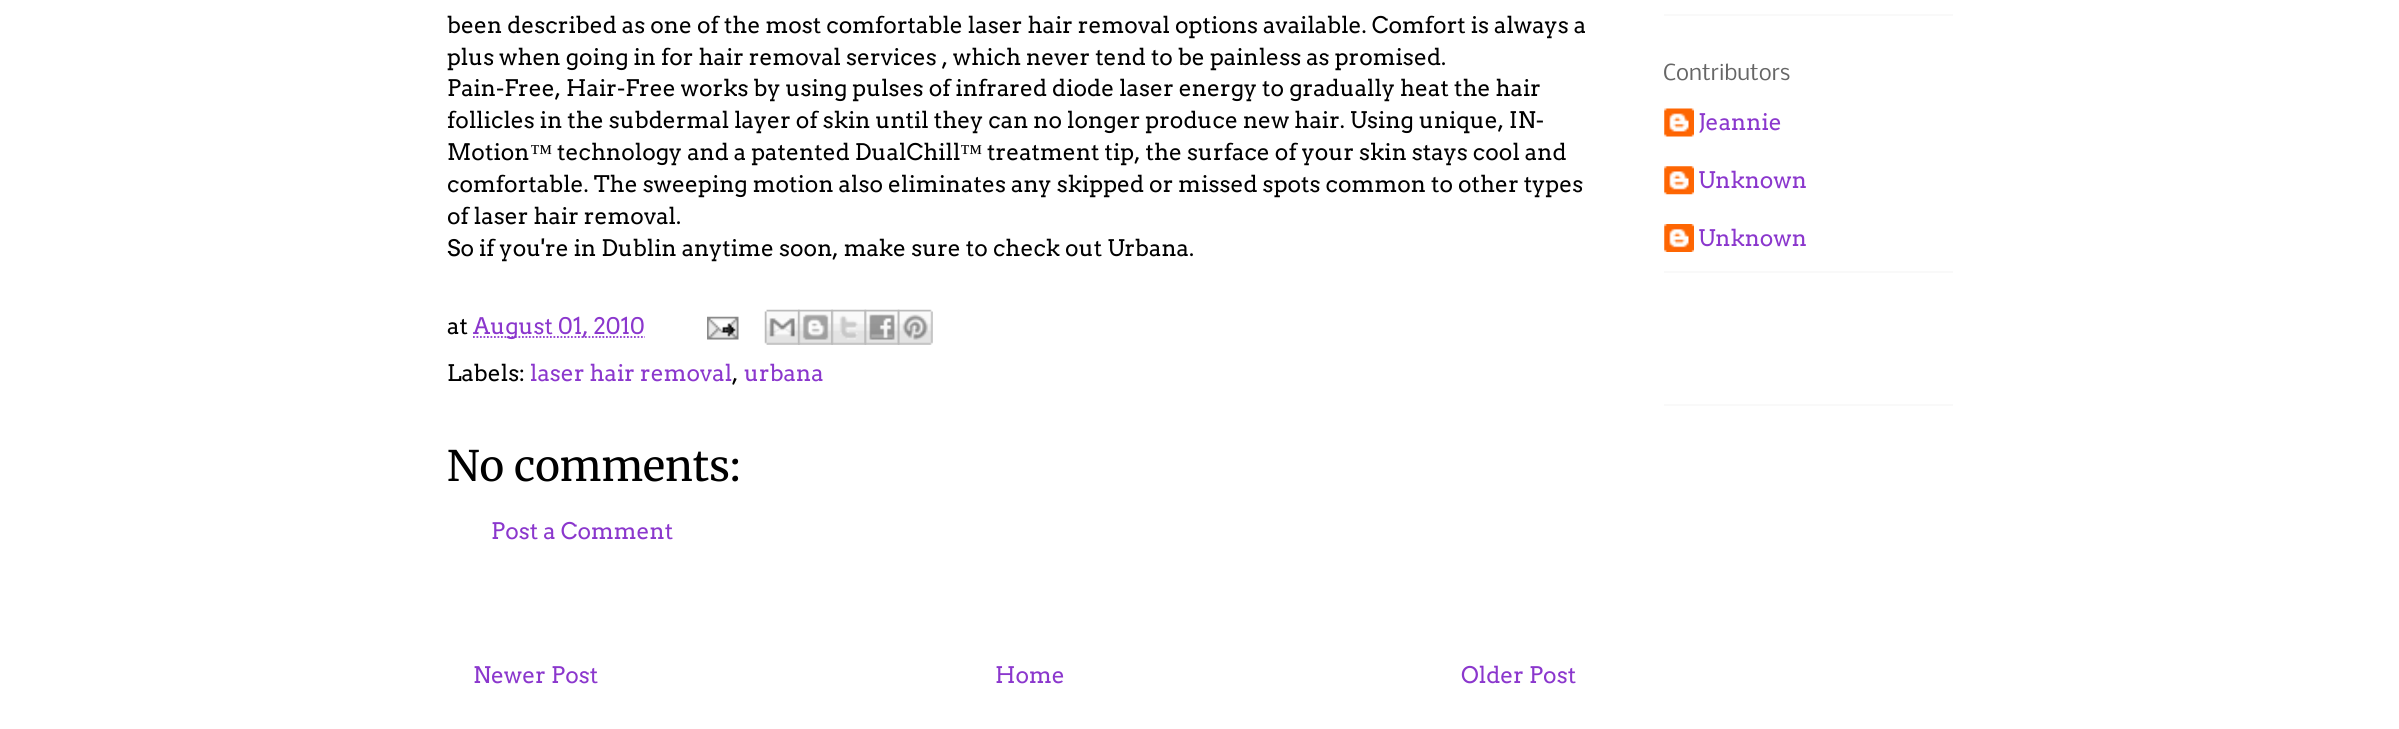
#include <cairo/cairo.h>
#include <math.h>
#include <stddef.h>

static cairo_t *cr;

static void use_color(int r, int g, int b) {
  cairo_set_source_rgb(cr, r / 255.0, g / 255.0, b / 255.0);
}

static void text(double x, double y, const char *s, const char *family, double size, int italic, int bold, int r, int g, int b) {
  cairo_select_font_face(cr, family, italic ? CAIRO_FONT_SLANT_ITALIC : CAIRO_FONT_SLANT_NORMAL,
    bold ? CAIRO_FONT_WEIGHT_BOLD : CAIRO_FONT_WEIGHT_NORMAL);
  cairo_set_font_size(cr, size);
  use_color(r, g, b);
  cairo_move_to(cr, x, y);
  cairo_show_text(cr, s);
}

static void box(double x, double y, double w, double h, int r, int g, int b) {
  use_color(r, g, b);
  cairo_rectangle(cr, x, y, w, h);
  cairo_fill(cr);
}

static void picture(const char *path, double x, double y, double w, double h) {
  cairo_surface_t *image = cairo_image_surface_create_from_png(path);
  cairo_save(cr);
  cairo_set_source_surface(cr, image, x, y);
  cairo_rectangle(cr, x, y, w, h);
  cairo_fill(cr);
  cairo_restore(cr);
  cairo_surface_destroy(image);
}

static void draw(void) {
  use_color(255, 255, 255);
  cairo_paint(cr);
  cairo_new_path(cr);
  cairo_move_to(cr, 473, 337);
  cairo_line_to(cr, 645, 337);
  use_color(139, 55, 205);
  cairo_set_line_width(cr, 1.8);
  cairo_set_dash(cr, (double[]){1.75, 1.75}, 2, 0);
  cairo_stroke(cr);
  picture("img_01.png", 707, 316, 32, 24);
  picture("img_02.png", 764, 309, 36, 36);
  picture("img_03.png", 798, 309, 35, 36);
  picture("img_04.png", 831, 309, 36, 36);
  picture("img_05.png", 864, 309, 36, 36);
  picture("img_06.png", 897, 309, 36, 36);
  box(1664, 14, 289, 2, 249, 249, 249);
  box(1664, 271, 289, 2, 249, 249, 249);
  picture("img_07.png", 1664, 108, 30, 29);
  picture("img_08.png", 1664, 166, 30, 29);
  picture("img_09.png", 1664, 224, 30, 28);
  box(1664, 404, 289, 2, 249, 249, 249);
  text(447, 33, "been described as one of the most comfortable laser hair removal options available. Comfort is always a", "Arvo", 22.75, 0, 0, 0, 0, 0);
  text(447, 65, "plus when going in for hair removal services , which never tend to be painless as promised.", "Arvo", 22.75, 0, 0, 0, 0, 0);
  text(447, 96, "Pain-Free, Hair-Free works by using pulses of infrared diode laser energy to gradually heat the hair", "Arvo", 22.75, 0, 0, 0, 0, 0);
  text(447, 128, "follicles in the subdermal layer of skin until they can no longer produce new hair. Using unique, IN-", "Arvo", 22.75, 0, 0, 0, 0, 0);
  text(447, 160, "Motion", "Arvo", 22.75, 0, 0, 0, 0, 0);
  text(530, 160, "™", "Liberation Serif", 22.75, 0, 0, 0, 0, 0);
  text(557, 160, "technology and a patented DualChill", "Arvo", 22.75, 0, 0, 0, 0, 0);
  text(960, 160, "™", "Liberation Serif", 22.75, 0, 0, 0, 0, 0);
  text(987, 160, "treatment tip, the surface of your skin stays cool and", "Arvo", 22.75, 0, 0, 0, 0, 0);
  text(447, 192, "comfortable. The sweeping motion also eliminates any skipped or missed spots common to other types", "Arvo", 22.75, 0, 0, 0, 0, 0);
  text(447, 224, "of laser hair removal.", "Arvo", 22.75, 0, 0, 0, 0, 0);
  text(447, 256, "So if you're in Dublin anytime soon, make sure to check out Urbana.", "Arvo", 22.75, 0, 0, 0, 0, 0);
  text(447, 334, "at", "Arvo", 22.75, 0, 0, 0, 0, 0);
  text(473, 334, "August 01, 2010", "Arvo", 22.75, 0, 0, 139, 55, 205);
  text(447, 381, "Labels:", "Arvo", 22.75, 0, 0, 0, 0, 0);
  text(530, 381, "laser hair removal", "Arvo", 22.75, 0, 0, 139, 55, 205);
  text(732, 381, ",", "Arvo", 22.75, 0, 0, 0, 0, 0);
  text(744, 381, "urbana", "Arvo", 22.75, 0, 0, 139, 55, 205);
  text(447, 481, "No comments:", "Merriweather Light", 42, 0, 0, 0, 0, 0);
  text(491, 539, "Post a Comment", "Arvo", 22.75, 0, 0, 139, 55, 205);
  text(473, 683, "Newer Post", "Arvo", 22.75, 0, 0, 139, 55, 205);
  text(995, 683, "Home", "Arvo", 22.75, 0, 0, 139, 55, 205);
  text(1461, 683, "Older Post", "Arvo", 22.75, 0, 0, 139, 55, 205);
  text(1663, 80, "Contributors", "Nobile", 21, 0, 0, 102, 102, 102);
  text(1698, 130, "Jeannie", "Arvo", 22.75, 0, 0, 139, 55, 205);
  text(1698, 188, "Unknown", "Arvo", 22.75, 0, 0, 139, 55, 205);
  text(1698, 246, "Unknown", "Arvo", 22.75, 0, 0, 139, 55, 205);
}

int main(void) {
  cairo_surface_t *surface = cairo_image_surface_create(CAIRO_FORMAT_RGB24, 2399, 729);
  cr = cairo_create(surface);
  cairo_font_options_t *options = cairo_font_options_create();
  cairo_font_options_set_hint_metrics(options, CAIRO_HINT_METRICS_OFF);
  cairo_font_options_set_hint_style(options, CAIRO_HINT_STYLE_NONE);
  cairo_set_font_options(cr, options);
  cairo_set_miter_limit(cr, 4);
  draw();
  cairo_surface_write_to_png(surface, "out.png");
  cairo_font_options_destroy(options);
  cairo_destroy(cr);
  cairo_surface_destroy(surface);
  return 0;
}
